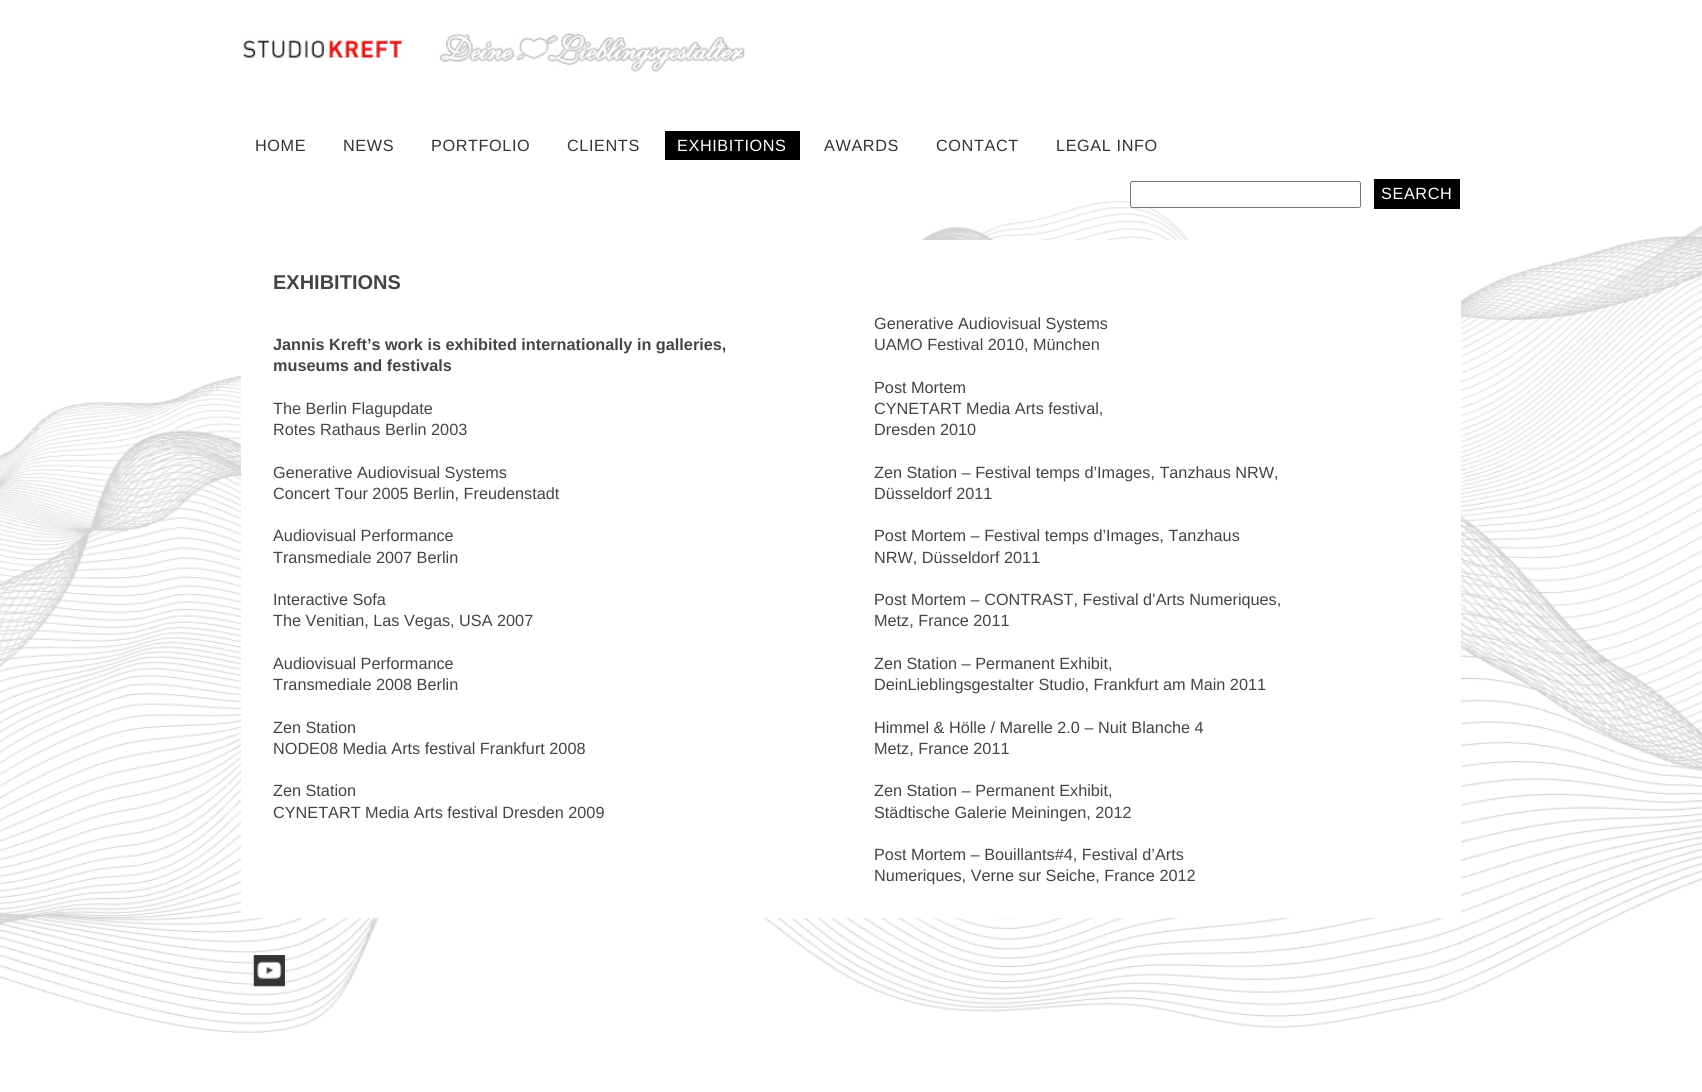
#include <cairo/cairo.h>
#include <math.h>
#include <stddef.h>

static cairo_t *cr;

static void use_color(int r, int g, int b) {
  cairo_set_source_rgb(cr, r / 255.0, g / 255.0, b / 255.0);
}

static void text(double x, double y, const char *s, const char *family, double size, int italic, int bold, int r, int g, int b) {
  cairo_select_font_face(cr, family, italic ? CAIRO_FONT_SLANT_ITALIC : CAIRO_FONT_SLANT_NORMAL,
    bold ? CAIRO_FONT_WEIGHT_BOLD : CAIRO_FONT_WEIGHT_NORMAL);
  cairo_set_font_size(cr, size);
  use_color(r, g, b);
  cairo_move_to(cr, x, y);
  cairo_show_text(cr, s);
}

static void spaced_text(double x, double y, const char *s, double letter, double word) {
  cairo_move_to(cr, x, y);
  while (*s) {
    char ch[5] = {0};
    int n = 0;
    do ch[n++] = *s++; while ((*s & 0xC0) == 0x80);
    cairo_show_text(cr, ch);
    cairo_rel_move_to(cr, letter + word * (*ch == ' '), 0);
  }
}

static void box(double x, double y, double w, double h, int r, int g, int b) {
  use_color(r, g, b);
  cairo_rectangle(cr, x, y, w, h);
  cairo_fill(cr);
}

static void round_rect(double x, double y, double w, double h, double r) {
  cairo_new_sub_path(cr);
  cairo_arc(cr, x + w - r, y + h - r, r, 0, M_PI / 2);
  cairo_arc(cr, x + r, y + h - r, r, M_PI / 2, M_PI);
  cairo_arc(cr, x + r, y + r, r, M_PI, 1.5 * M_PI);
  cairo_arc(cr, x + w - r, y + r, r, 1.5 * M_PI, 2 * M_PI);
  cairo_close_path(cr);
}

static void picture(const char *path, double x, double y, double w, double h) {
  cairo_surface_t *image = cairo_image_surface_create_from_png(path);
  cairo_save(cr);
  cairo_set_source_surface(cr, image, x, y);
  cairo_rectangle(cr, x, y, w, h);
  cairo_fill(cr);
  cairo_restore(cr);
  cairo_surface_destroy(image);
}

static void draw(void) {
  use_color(255, 255, 255);
  cairo_paint(cr);
  picture("img_01.png", 0, 201, 1702, 832);
  picture("img_02.png", 243, 33, 503, 39);
  box(665, 131, 135, 29, 0, 0, 0);
  use_color(255, 255, 255);
  round_rect(1130.5, 181.5, 230, 26, 2);
  cairo_fill_preserve(cr);
  use_color(118, 118, 118);
  cairo_set_line_width(cr, 1);
  cairo_stroke(cr);
  box(1374, 179, 86, 30, 0, 0, 0);
  box(241, 240, 1220, 678, 255, 255, 255);
  picture("img_03.png", 253, 955, 32, 32);
  cairo_select_font_face(cr, "Liberation Sans", CAIRO_FONT_SLANT_NORMAL, CAIRO_FONT_WEIGHT_NORMAL);
  cairo_set_font_size(cr, 16.25);
  use_color(51, 51, 51);
  spaced_text(255, 151, "HOME", 0.6, 0);
  spaced_text(343, 151, "NEWS", 0.6, 0);
  spaced_text(431, 151, "PORTFOLIO", 0.6, 0);
  spaced_text(567, 151, "CLIENTS", 0.6, 0);
  use_color(255, 255, 255);
  spaced_text(677, 151, "EXHIBITIONS", 0.6, 0);
  use_color(51, 51, 51);
  spaced_text(824, 151, "AWARDS", 0.6, 0);
  spaced_text(936, 151, "CONTACT", 0.6, 0);
  spaced_text(1056, 151, "LEGAL INFO", 0.6, 0);
  use_color(255, 255, 255);
  spaced_text(1381, 199, "SEARCH", 0.6, 0);
  text(273, 289, "EXHIBITIONS", "Liberation Sans", 20, 0, 1, 68, 68, 68);
  text(273, 350, "Jannis Kreft’s work is exhibited internationally in galleries,", "Liberation Sans", 16.25, 0, 1, 68, 68, 68);
  text(273, 371, "museums and festivals", "Liberation Sans", 16.25, 0, 1, 68, 68, 68);
  text(273, 414, "The Berlin Flagupdate", "Liberation Sans", 16.25, 0, 0, 68, 68, 68);
  text(273, 435, "Rotes Rathaus Berlin 2003", "Liberation Sans", 16.25, 0, 0, 68, 68, 68);
  text(273, 478, "Generative Audiovisual Systems", "Liberation Sans", 16.25, 0, 0, 68, 68, 68);
  text(273, 499, "Concert Tour 2005 Berlin, Freudenstadt", "Liberation Sans", 16.25, 0, 0, 68, 68, 68);
  text(273, 541, "Audiovisual Performance", "Liberation Sans", 16.25, 0, 0, 68, 68, 68);
  text(273, 563, "Transmediale 2007 Berlin", "Liberation Sans", 16.25, 0, 0, 68, 68, 68);
  text(273, 605, "Interactive Sofa", "Liberation Sans", 16.25, 0, 0, 68, 68, 68);
  text(273, 626, "The Venitian, Las Vegas, USA 2007", "Liberation Sans", 16.25, 0, 0, 68, 68, 68);
  text(273, 669, "Audiovisual Performance", "Liberation Sans", 16.25, 0, 0, 68, 68, 68);
  text(273, 690, "Transmediale 2008 Berlin", "Liberation Sans", 16.25, 0, 0, 68, 68, 68);
  text(273, 733, "Zen Station", "Liberation Sans", 16.25, 0, 0, 68, 68, 68);
  text(273, 754, "NODE08 Media Arts festival Frankfurt 2008", "Liberation Sans", 16.25, 0, 0, 68, 68, 68);
  text(273, 796, "Zen Station", "Liberation Sans", 16.25, 0, 0, 68, 68, 68);
  text(273, 818, "CYNETART Media Arts festival Dresden 2009", "Liberation Sans", 16.25, 0, 0, 68, 68, 68);
  text(874, 329, "Generative Audiovisual Systems", "Liberation Sans", 16.25, 0, 0, 68, 68, 68);
  text(874, 350, "UAMO Festival 2010, München", "Liberation Sans", 16.25, 0, 0, 68, 68, 68);
  text(874, 393, "Post Mortem", "Liberation Sans", 16.25, 0, 0, 68, 68, 68);
  text(874, 414, "CYNETART Media Arts festival,", "Liberation Sans", 16.25, 0, 0, 68, 68, 68);
  text(874, 435, "Dresden 2010", "Liberation Sans", 16.25, 0, 0, 68, 68, 68);
  text(874, 478, "Zen Station – Festival temps d’Images, Tanzhaus NRW,", "Liberation Sans", 16.25, 0, 0, 68, 68, 68);
  text(874, 499, "Düsseldorf 2011", "Liberation Sans", 16.25, 0, 0, 68, 68, 68);
  text(874, 541, "Post Mortem – Festival temps d’Images, Tanzhaus", "Liberation Sans", 16.25, 0, 0, 68, 68, 68);
  text(874, 563, "NRW, Düsseldorf 2011", "Liberation Sans", 16.25, 0, 0, 68, 68, 68);
  text(874, 605, "Post Mortem – CONTRAST, Festival d’Arts Numeriques,", "Liberation Sans", 16.25, 0, 0, 68, 68, 68);
  text(874, 626, "Metz, France 2011", "Liberation Sans", 16.25, 0, 0, 68, 68, 68);
  text(874, 669, "Zen Station – Permanent Exhibit,", "Liberation Sans", 16.25, 0, 0, 68, 68, 68);
  text(874, 690, "DeinLieblingsgestalter Studio, Frankfurt am Main 2011", "Liberation Sans", 16.25, 0, 0, 68, 68, 68);
  text(874, 733, "Himmel & Hölle / Marelle 2.0 – Nuit Blanche 4", "Liberation Sans", 16.25, 0, 0, 68, 68, 68);
  text(874, 754, "Metz, France 2011", "Liberation Sans", 16.25, 0, 0, 68, 68, 68);
  text(874, 796, "Zen Station – Permanent Exhibit,", "Liberation Sans", 16.25, 0, 0, 68, 68, 68);
  text(874, 818, "Städtische Galerie Meiningen, 2012", "Liberation Sans", 16.25, 0, 0, 68, 68, 68);
  text(874, 860, "Post Mortem – Bouillants#4, Festival d’Arts", "Liberation Sans", 16.25, 0, 0, 68, 68, 68);
  text(874, 881, "Numeriques, Verne sur Seiche, France 2012", "Liberation Sans", 16.25, 0, 0, 68, 68, 68);
}

int main(void) {
  cairo_surface_t *surface = cairo_image_surface_create(CAIRO_FORMAT_RGB24, 1702, 1092);
  cr = cairo_create(surface);
  cairo_font_options_t *options = cairo_font_options_create();
  cairo_font_options_set_hint_metrics(options, CAIRO_HINT_METRICS_OFF);
  cairo_font_options_set_hint_style(options, CAIRO_HINT_STYLE_NONE);
  cairo_set_font_options(cr, options);
  cairo_set_miter_limit(cr, 4);
  draw();
  cairo_surface_write_to_png(surface, "out.png");
  cairo_font_options_destroy(options);
  cairo_destroy(cr);
  cairo_surface_destroy(surface);
  return 0;
}
